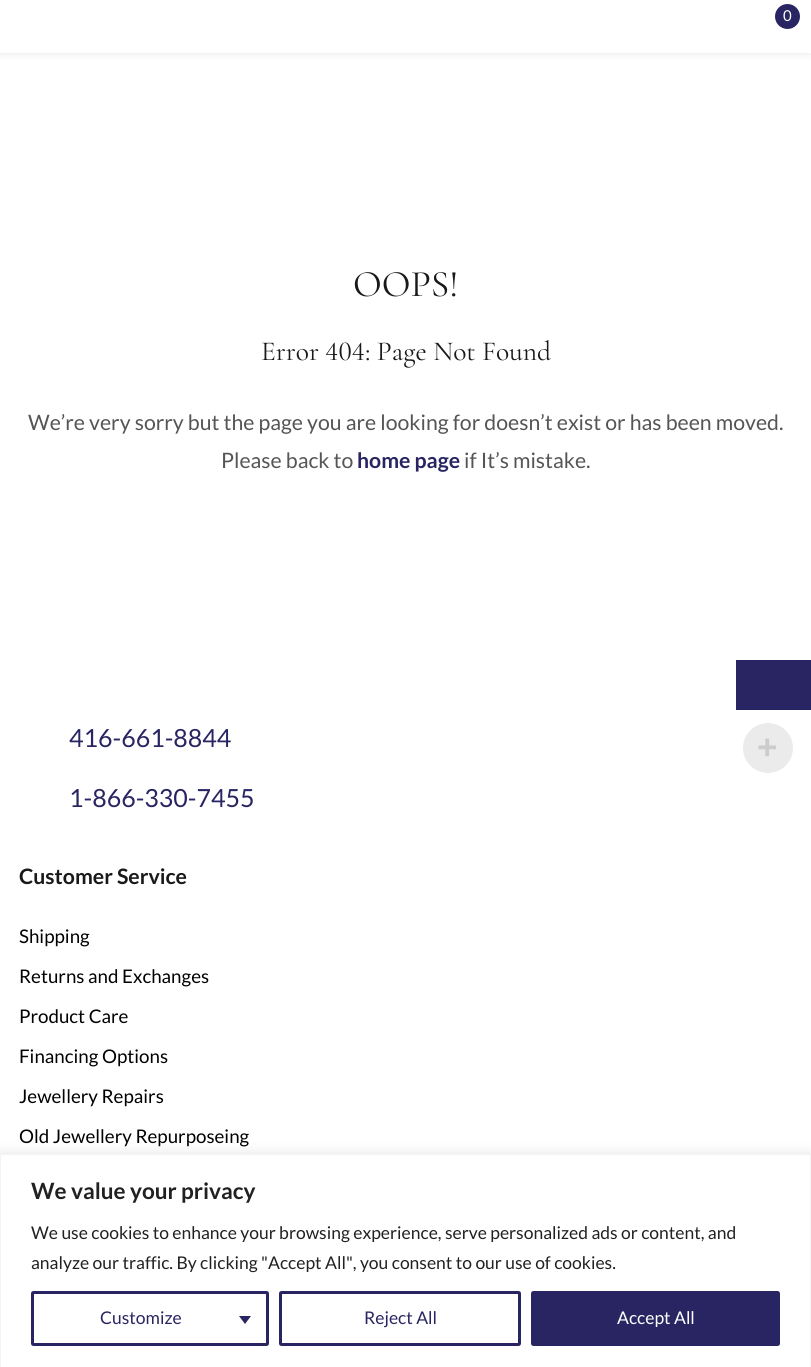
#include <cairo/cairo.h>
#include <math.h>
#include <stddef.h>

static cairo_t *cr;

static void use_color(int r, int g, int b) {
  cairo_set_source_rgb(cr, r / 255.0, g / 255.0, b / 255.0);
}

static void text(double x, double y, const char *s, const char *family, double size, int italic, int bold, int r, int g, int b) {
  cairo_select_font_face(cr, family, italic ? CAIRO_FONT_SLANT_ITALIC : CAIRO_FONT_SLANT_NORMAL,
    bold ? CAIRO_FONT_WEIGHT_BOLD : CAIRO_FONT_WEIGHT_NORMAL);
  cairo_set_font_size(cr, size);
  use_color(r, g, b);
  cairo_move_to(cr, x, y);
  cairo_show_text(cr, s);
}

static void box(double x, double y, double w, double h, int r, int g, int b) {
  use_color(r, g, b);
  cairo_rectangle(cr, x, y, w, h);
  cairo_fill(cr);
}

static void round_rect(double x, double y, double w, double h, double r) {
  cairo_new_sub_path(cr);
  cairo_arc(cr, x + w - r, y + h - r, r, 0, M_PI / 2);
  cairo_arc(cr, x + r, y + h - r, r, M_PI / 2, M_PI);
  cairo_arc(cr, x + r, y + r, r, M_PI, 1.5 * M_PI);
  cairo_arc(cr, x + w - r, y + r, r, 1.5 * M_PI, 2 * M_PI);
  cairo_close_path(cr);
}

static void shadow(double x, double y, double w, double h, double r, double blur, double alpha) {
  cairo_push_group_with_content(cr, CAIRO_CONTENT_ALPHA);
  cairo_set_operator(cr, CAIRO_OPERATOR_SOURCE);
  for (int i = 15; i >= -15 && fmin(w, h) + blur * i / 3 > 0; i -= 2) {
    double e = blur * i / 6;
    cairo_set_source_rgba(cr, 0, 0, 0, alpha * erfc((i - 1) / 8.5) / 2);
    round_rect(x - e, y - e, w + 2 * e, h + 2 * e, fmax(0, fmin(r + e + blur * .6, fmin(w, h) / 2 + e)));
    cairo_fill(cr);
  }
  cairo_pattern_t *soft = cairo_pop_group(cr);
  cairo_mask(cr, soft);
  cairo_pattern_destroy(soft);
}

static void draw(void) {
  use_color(255, 255, 255);
  cairo_paint(cr);
  use_color(0, 0, 0);
  shadow(0, 0, 811, 53, 0, 5, 0.1);
  box(0, 0, 811, 53, 255, 255, 255);
  use_color(41, 37, 98);
  cairo_arc(cr, 787.5, 16.5, 12.5, 0, 2 * M_PI);
  cairo_fill(cr);
  box(736, 660, 75, 50, 41, 37, 98);
  use_color(235, 235, 235);
  cairo_arc(cr, 768, 748, 25, 0, 2 * M_PI);
  cairo_fill(cr);
  use_color(172, 171, 171);
  shadow(0, 1153, 811, 213, 0, 6, 0.3);
  use_color(255, 255, 255);
  cairo_rectangle(cr, 0.5, 1154.5, 810, 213);
  cairo_fill_preserve(cr);
  use_color(244, 244, 244);
  cairo_set_line_width(cr, 1);
  cairo_stroke(cr);
  round_rect(32.5, 1292.5, 235, 52, 1);
  use_color(41, 37, 98);
  cairo_set_line_width(cr, 3);
  cairo_stroke(cr);
  cairo_new_path(cr);
  cairo_move_to(cr, 239, 1316);
  cairo_line_to(cr, 251, 1316);
  cairo_line_to(cr, 245, 1324);
  cairo_close_path(cr);
  cairo_fill(cr);
  round_rect(280.5, 1292.5, 239, 52, 1);
  cairo_stroke(cr);
  round_rect(532.5, 1292.5, 246, 52, 1);
  cairo_fill_preserve(cr);
  cairo_stroke(cr);
  text(783, 21, "0", "Lato", 15, 0, 0, 255, 255, 255);
  text(353, 296, "OOPS!", "Cormorant Garamond", 37.5, 0, 0, 25, 25, 25);
  text(261, 360, "Error 404: Page Not Found", "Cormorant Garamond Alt", 27.5, 0, 0, 25, 25, 25);
  text(28, 430, "We’re very sorry but the page you are looking for doesn’t exist or has been moved.", "Lato", 21.25, 0, 0, 85, 85, 85);
  text(221, 468, "Please back to", "Lato", 21.25, 0, 0, 85, 85, 85);
  text(357, 468, "home page", "Lato", 21.25, 0, 1, 41, 37, 98);
  text(464, 468, "if It’s mistake.", "Lato", 21.25, 0, 0, 85, 85, 85);
  text(69, 747, "416-661-8844", "Lato", 25, 0, 0, 41, 37, 98);
  text(69, 807, "1-866-330-7455", "Lato", 25, 0, 0, 41, 37, 98);
  text(19, 884, "Customer Service", "Lato", 21.25, 0, 1, 25, 25, 25);
  text(19, 943, "Shipping", "Lato", 18.75, 0, 0, 0, 0, 0);
  text(19, 983, "Returns and Exchanges", "Lato", 18.75, 0, 0, 0, 0, 0);
  text(19, 1023, "Product Care", "Lato", 18.75, 0, 0, 0, 0, 0);
  text(19, 1063, "Financing Options", "Lato", 18.75, 0, 0, 0, 0, 0);
  text(19, 1103, "Jewellery Repairs", "Lato", 18.75, 0, 0, 0, 0, 0);
  text(19, 1143, "Old Jewellery Repurposeing", "Lato", 18.75, 0, 0, 0, 0, 0);
  text(757, 759, "+", "Liberation Sans", 35, 0, 1, 204, 204, 204);
  text(31, 1199, "We value your privacy", "Lato", 22.5, 0, 1, 33, 33, 33);
  text(31, 1239, "We use cookies to enhance your browsing experience, serve personalized ads or content, and", "Lato", 17.5, 0, 0, 33, 33, 33);
  text(31, 1269, "analyze our traffic. By clicking \"Accept All\", you consent to our use of cookies.", "Lato", 17.5, 0, 0, 33, 33, 33);
  text(100, 1324, "Customize", "Lato", 17.5, 0, 0, 41, 37, 98);
  text(364, 1324, "Reject All", "Lato", 17.5, 0, 0, 41, 37, 98);
  text(617, 1324, "Accept All", "Lato", 17.5, 0, 0, 255, 255, 255);
}

int main(void) {
  cairo_surface_t *surface = cairo_image_surface_create(CAIRO_FORMAT_RGB24, 811, 1367);
  cr = cairo_create(surface);
  cairo_font_options_t *options = cairo_font_options_create();
  cairo_font_options_set_hint_metrics(options, CAIRO_HINT_METRICS_OFF);
  cairo_font_options_set_hint_style(options, CAIRO_HINT_STYLE_NONE);
  cairo_set_font_options(cr, options);
  cairo_set_miter_limit(cr, 4);
  draw();
  cairo_surface_write_to_png(surface, "out.png");
  cairo_font_options_destroy(options);
  cairo_destroy(cr);
  cairo_surface_destroy(surface);
  return 0;
}
